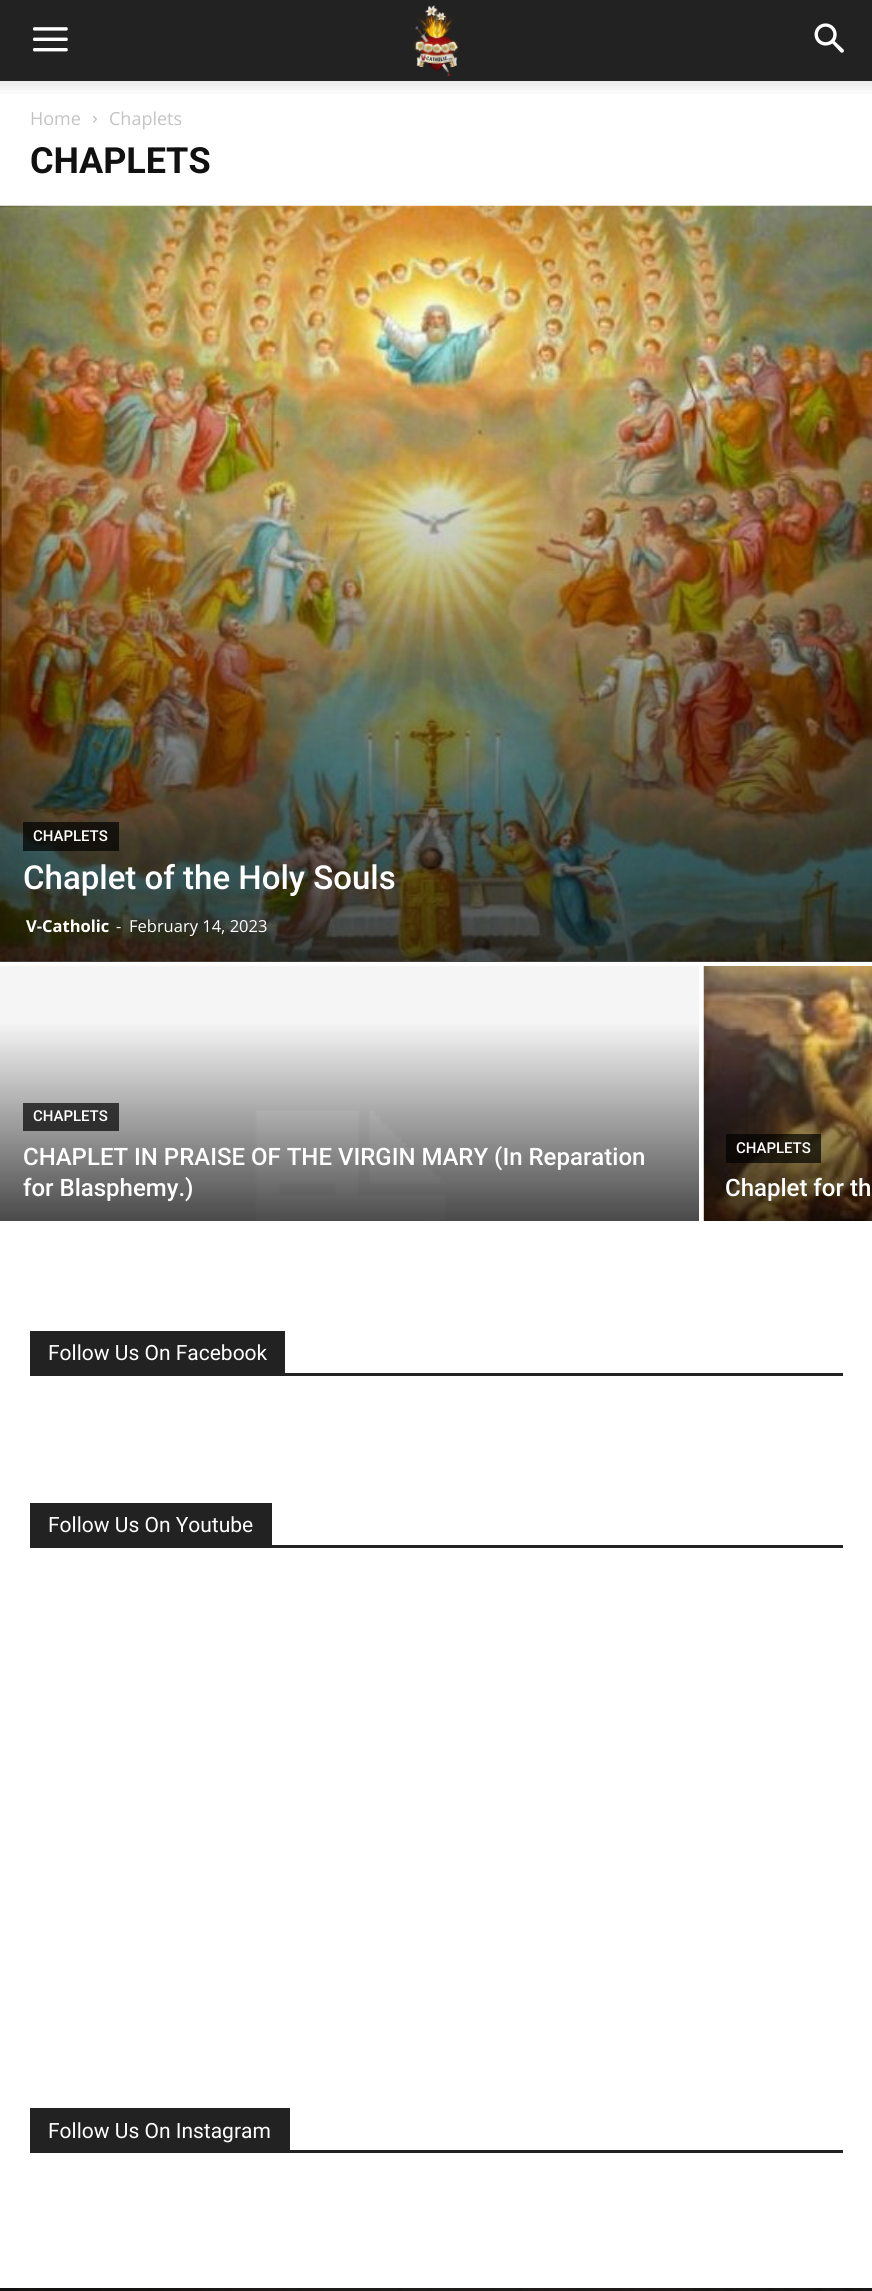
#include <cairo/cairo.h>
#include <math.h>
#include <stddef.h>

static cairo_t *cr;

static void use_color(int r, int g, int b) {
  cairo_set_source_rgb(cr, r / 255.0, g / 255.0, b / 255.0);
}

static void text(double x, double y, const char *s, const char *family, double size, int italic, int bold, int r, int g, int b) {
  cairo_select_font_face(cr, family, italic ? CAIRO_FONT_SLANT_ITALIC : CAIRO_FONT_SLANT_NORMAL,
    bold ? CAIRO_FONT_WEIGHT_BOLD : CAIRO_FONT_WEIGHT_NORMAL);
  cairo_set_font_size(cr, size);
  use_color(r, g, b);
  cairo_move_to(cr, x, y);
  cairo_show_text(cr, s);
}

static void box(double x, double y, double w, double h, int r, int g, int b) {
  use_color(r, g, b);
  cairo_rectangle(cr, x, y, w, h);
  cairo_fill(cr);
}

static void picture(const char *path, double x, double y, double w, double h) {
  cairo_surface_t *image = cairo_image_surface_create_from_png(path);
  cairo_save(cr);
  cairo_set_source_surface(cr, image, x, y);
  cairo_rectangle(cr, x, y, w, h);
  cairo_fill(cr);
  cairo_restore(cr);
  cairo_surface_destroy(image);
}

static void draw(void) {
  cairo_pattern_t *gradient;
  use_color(255, 255, 255);
  cairo_paint(cr);
  box(0, 0, 872, 81, 34, 34, 34);
  picture("img_01.png", 33, 27, 35, 25);
  picture("img_02.png", 413, 5, 46, 72);
  picture("img_03.png", 814, 23, 30, 30);
  picture("img_04.png", 0, 81, 872, 13);
  picture("img_05.png", 93, 115, 4, 8);
  box(0, 961, 872, 1, 229, 229, 229);
  picture("img_06.png", 0, 205, 872, 757);
  gradient = cairo_pattern_create_linear(436, -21, 437, 962);
  cairo_pattern_add_color_stop_rgba(gradient, 0.4, 0, 0, 0, 0);
  cairo_pattern_add_color_stop_rgba(gradient, 1, 0, 0, 0, 0.7);
  cairo_set_source(cr, gradient);
  cairo_pattern_destroy(gradient);
  cairo_rectangle(cr, 0, 390, 872, 572);
  cairo_fill(cr);
  cairo_set_source_rgba(cr, 0, 0, 0, 0.7);
  cairo_rectangle(cr, 23, 822, 96, 29);
  cairo_fill(cr);
  picture("img_07.png", 0, 966, 699, 255);
  cairo_rectangle(cr, 23, 1103, 96, 28);
  cairo_fill(cr);
  picture("img_08.png", 703, 966, 169, 255);
  cairo_rectangle(cr, 726, 1134, 95, 29);
  cairo_fill(cr);
  box(30, 1373, 813, 3, 34, 34, 34);
  box(30, 1331, 255, 42, 34, 34, 34);
  box(30, 1545, 813, 3, 34, 34, 34);
  box(30, 1503, 242, 42, 34, 34, 34);
  box(30, 2150, 813, 3, 34, 34, 34);
  box(30, 2108, 260, 42, 34, 34, 34);
  box(0, 2288, 872, 3, 17, 17, 17);
  picture("img_09.png", 17, 2288, 855, 3);
  text(30, 125, "Home", "Open Sans", 18, 0, 0, 195, 195, 195);
  text(109, 125, "Chaplets", "Open Sans", 18, 0, 0, 195, 195, 195);
  text(30, 173, "CHAPLETS", "Roboto", 36, 0, 1, 17, 17, 17);
  text(33, 841, "CHAPLETS", "Roboto Medium", 15, 0, 0, 255, 255, 255);
  text(23, 889, "Chaplet of the Holy Souls", "Roboto Medium", 33, 0, 0, 255, 255, 255);
  text(26, 932, "V-Catholic", "Open Sans", 16.5, 0, 1, 255, 255, 255);
  text(116, 932, "-", "Open Sans", 16.5, 0, 0, 255, 255, 255);
  text(129, 932, "February 14, 2023", "Open Sans", 16.5, 0, 0, 255, 255, 255);
  text(33, 1121, "CHAPLETS", "Roboto Medium", 15, 0, 0, 255, 255, 255);
  text(23, 1165, "CHAPLET IN PRAISE OF THE VIRGIN MARY (In Reparation", "Roboto Medium", 24, 0, 0, 255, 255, 255);
  text(23, 1196, "for Blasphemy.)", "Roboto Medium", 24, 0, 0, 255, 255, 255);
  text(736, 1153, "CHAPLETS", "Roboto Medium", 15, 0, 0, 255, 255, 255);
  text(725, 1196, "Chaplet for th", "Roboto Medium", 24, 0, 0, 255, 255, 255);
  text(48, 1360, "Follow Us On Facebook", "Roboto", 21, 0, 0, 255, 255, 255);
  text(48, 1532, "Follow Us On Youtube", "Roboto", 21, 0, 0, 255, 255, 255);
  text(48, 2138, "Follow Us On Instagram", "Roboto", 21, 0, 0, 255, 255, 255);
}

int main(void) {
  cairo_surface_t *surface = cairo_image_surface_create(CAIRO_FORMAT_RGB24, 872, 2291);
  cr = cairo_create(surface);
  cairo_font_options_t *options = cairo_font_options_create();
  cairo_font_options_set_hint_metrics(options, CAIRO_HINT_METRICS_OFF);
  cairo_font_options_set_hint_style(options, CAIRO_HINT_STYLE_NONE);
  cairo_set_font_options(cr, options);
  cairo_set_miter_limit(cr, 4);
  draw();
  cairo_surface_write_to_png(surface, "out.png");
  cairo_font_options_destroy(options);
  cairo_destroy(cr);
  cairo_surface_destroy(surface);
  return 0;
}
